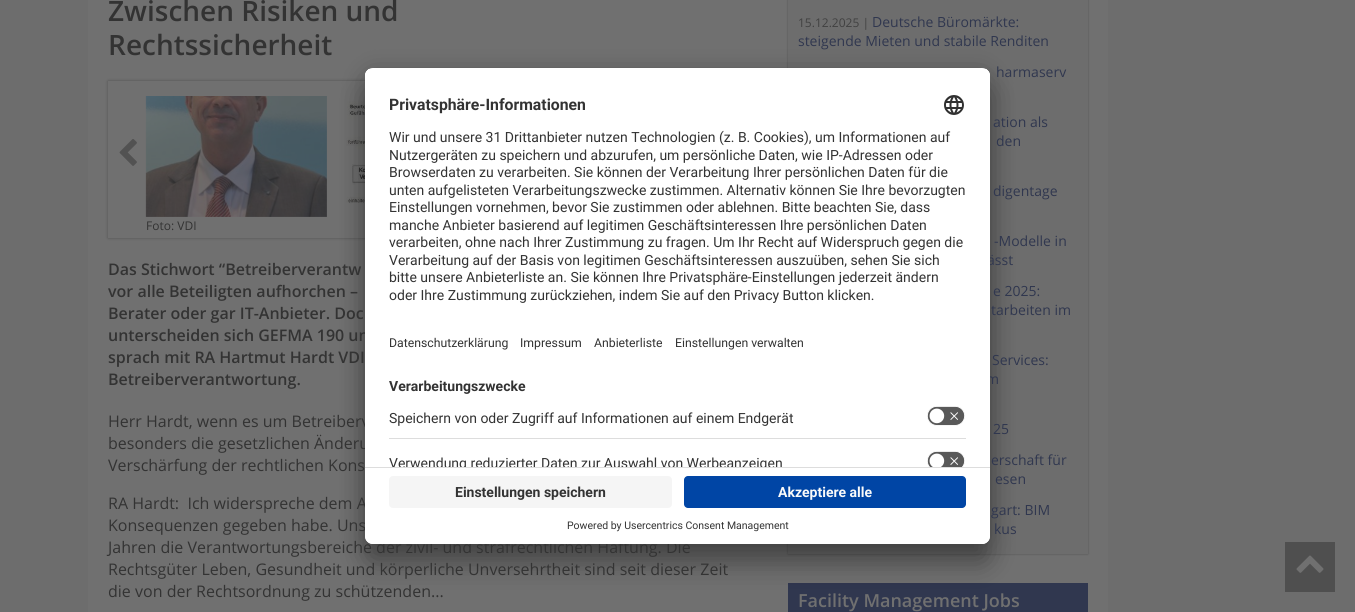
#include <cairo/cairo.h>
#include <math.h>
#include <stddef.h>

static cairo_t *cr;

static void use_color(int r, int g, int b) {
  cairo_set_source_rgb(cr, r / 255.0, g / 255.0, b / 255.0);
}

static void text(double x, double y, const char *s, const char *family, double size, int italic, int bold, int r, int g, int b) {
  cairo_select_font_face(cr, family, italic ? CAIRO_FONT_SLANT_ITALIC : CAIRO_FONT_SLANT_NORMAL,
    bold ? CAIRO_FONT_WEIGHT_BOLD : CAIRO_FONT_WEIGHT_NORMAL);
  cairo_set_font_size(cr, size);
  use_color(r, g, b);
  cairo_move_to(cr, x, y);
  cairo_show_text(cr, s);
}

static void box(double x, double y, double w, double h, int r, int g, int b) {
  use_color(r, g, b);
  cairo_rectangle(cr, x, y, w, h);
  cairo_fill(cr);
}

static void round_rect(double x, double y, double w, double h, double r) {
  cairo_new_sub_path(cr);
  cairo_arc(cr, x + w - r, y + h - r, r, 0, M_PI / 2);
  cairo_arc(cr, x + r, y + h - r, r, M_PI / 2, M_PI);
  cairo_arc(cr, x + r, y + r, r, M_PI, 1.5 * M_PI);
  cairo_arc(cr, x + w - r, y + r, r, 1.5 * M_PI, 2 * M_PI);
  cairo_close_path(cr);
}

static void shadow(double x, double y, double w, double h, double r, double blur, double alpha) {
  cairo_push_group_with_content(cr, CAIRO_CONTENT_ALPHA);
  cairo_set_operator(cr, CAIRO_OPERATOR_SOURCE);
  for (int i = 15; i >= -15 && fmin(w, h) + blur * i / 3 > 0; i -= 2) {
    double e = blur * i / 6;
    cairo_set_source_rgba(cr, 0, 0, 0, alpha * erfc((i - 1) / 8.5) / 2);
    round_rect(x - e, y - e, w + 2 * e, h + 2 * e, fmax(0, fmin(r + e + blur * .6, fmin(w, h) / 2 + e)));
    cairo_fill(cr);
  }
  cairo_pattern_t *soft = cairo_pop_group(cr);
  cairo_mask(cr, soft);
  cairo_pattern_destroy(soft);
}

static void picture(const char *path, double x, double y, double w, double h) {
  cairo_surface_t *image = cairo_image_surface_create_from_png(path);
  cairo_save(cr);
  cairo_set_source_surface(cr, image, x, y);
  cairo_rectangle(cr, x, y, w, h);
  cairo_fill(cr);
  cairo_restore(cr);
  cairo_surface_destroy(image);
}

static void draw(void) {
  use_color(109, 109, 109);
  cairo_paint(cr);
  box(88, 0, 1020, 612, 112, 112, 112);
  cairo_save(cr);
  cairo_set_fill_rule(cr, CAIRO_FILL_RULE_EVEN_ODD);
  cairo_new_path(cr);
  cairo_move_to(cr, 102, 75);
  cairo_line_to(cr, 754, 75);
  cairo_line_to(cr, 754, 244);
  cairo_line_to(cr, 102, 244);
  cairo_close_path(cr);
  cairo_move_to(cr, 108, 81);
  cairo_line_to(cr, 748, 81);
  cairo_line_to(cr, 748, 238);
  cairo_line_to(cr, 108, 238);
  cairo_close_path(cr);
  cairo_clip(cr);
  use_color(82, 82, 82);
  shadow(108, 81, 640, 157, 0, 1.5, 1);
  cairo_restore(cr);
  picture("img_01.png", 119, 139, 18, 27);
  picture("img_02.png", 346, 101, 19, 115);
  picture("img_03.png", 145, 96, 182, 121);
  use_color(82, 82, 82);
  shadow(788, -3, 300, 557, 0, 1, 1);
  box(788, 0, 300, 554, 109, 109, 109);
  box(788, 583, 300, 29, 48, 55, 79);
  use_color(0, 0, 0);
  shadow(365, 88, 625, 476, 8, 14, 0.3);
  shadow(365, 73, 625, 476, 8, 13, 0.22);
  box(1285, 542, 50, 50, 79, 79, 79);
  picture("img_07.png", 1296, 555, 28, 18);
  text(108, 21, "Zwischen Risiken und", "Open Sans SemiBold", 28, 0, 0, 51, 51, 51);
  text(108, 55, "Rechtssicherheit", "Open Sans SemiBold", 28, 0, 0, 51, 51, 51);
  text(146, 230, "Foto: VDI", "Open Sans", 12, 0, 0, 51, 51, 51);
  text(108, 275, "Das Stichwort “Betreiberverantw", "Open Sans SemiBold", 16, 0, 0, 51, 51, 51);
  text(108, 297, "vor alle Beteiligten aufhorchen –", "Open Sans SemiBold", 16, 0, 0, 51, 51, 51);
  text(108, 319, "Berater oder gar IT-Anbieter. Doc", "Open Sans SemiBold", 16, 0, 0, 51, 51, 51);
  text(108, 341, "unterscheiden sich GEFMA 190 un", "Open Sans SemiBold", 16, 0, 0, 51, 51, 51);
  text(108, 363, "sprach mit RA Hartmut Hardt VDI", "Open Sans SemiBold", 16, 0, 0, 51, 51, 51);
  text(108, 385, "Betreiberverantwortung.", "Open Sans SemiBold", 16, 0, 0, 51, 51, 51);
  text(108, 427, "Herr Hardt, wenn es um Betreiberv", "Open Sans", 16, 0, 0, 51, 51, 51);
  text(108, 449, "besonders die gesetzlichen Änderu", "Open Sans", 16, 0, 0, 51, 51, 51);
  text(108, 471, "Verschärfung der rechtlichen Kons", "Open Sans", 16, 0, 0, 51, 51, 51);
  text(108, 509, "RA Hardt:  Ich widerspreche dem A", "Open Sans", 16, 0, 0, 51, 51, 51);
  text(108, 531, "Konsequenzen gegeben habe. Uns", "Open Sans", 16, 0, 0, 51, 51, 51);
  text(108, 553, "Jahren die Verantwortungsbereiche der zivil- und strafrechtlichen Haftung. Die", "Open Sans", 16, 0, 0, 51, 51, 51);
  text(108, 575, "Rechtsgüter Leben, Gesundheit und körperliche Unversehrtheit sind seit dieser Zeit", "Open Sans", 16, 0, 0, 51, 51, 51);
  text(108, 597, "die von der Rechtsordnung zu schützenden...", "Open Sans", 16, 0, 0, 51, 51, 51);
  text(798, 27, "15.12.2025 |", "Open Sans", 12, 0, 0, 65, 65, 65);
  text(872, 27, "Deutsche Büromärkte:", "Open Sans", 14, 0, 0, 48, 55, 79);
  text(798, 46, "steigende Mieten und stabile Renditen", "Open Sans", 14, 0, 0, 48, 55, 79);
  text(996, 77, "harmaserv", "Open Sans", 14, 0, 0, 48, 55, 79);
  text(993, 127, "ation als", "Open Sans", 14, 0, 0, 48, 55, 79);
  text(996, 146, "den", "Open Sans", 14, 0, 0, 48, 55, 79);
  text(993, 196, "digentage", "Open Sans", 14, 0, 0, 48, 55, 79);
  text(994, 246, "-Modelle in", "Open Sans", 14, 0, 0, 48, 55, 79);
  text(987, 265, "ässt", "Open Sans", 14, 0, 0, 48, 55, 79);
  text(993, 296, "e 2025:", "Open Sans", 14, 0, 0, 48, 55, 79);
  text(991, 315, "tarbeiten im", "Open Sans", 14, 0, 0, 48, 55, 79);
  text(992, 365, "Services:", "Open Sans", 14, 0, 0, 48, 55, 79);
  text(986, 384, "m", "Open Sans", 14, 0, 0, 48, 55, 79);
  text(993, 434, "25", "Open Sans", 14, 0, 0, 48, 55, 79);
  text(991, 465, "erschaft für", "Open Sans", 14, 0, 0, 48, 55, 79);
  text(995, 484, "esen", "Open Sans", 14, 0, 0, 48, 55, 79);
  text(991, 515, "gart: BIM", "Open Sans", 14, 0, 0, 48, 55, 79);
  text(994, 534, "kus", "Open Sans", 14, 0, 0, 48, 55, 79);
  text(798, 607, "Facility Management Jobs", "Open Sans SemiBold", 18, 0, 0, 112, 112, 112);
  use_color(255, 255, 255);
  round_rect(365, 68, 625, 476, 8);
  cairo_fill(cr);
  cairo_save(cr);
  round_rect(365, 68, 625, 476, 8);
  cairo_clip(cr);
  cairo_new_path(cr);
  cairo_move_to(cr, 373, 68);
  cairo_line_to(cr, 982, 68);
  cairo_curve_to(cr, 986.5, 68, 990, 71.5, 990, 76);
  cairo_line_to(cr, 990, 467);
  cairo_line_to(cr, 365, 467);
  cairo_line_to(cr, 365, 76);
  cairo_curve_to(cr, 365, 71.5, 368.5, 68, 373, 68);
  cairo_close_path(cr);
  cairo_clip(cr);
  box(365, 69, 625, 398, 255, 255, 255);
  box(365, 69, 625, 297, 255, 255, 255);
  cairo_restore(cr);
  text(389, 110, "Privatsphäre-Informationen", "Roboto", 15.75, 0, 1, 51, 51, 51);
  picture("img_04.png", 944, 95, 20, 20);
  text(389, 142, "Wir und unsere 31 Drittanbieter nutzen Technologien (z. B. Cookies), um Informationen auf", "Roboto", 14, 0, 0, 51, 51, 51);
  text(389, 160, "Nutzergeräten zu speichern und abzurufen, um persönliche Daten, wie IP-Adressen oder", "Roboto", 14, 0, 0, 51, 51, 51);
  text(389, 177, "Browserdaten zu verarbeiten. Sie können der Verarbeitung Ihrer persönlichen Daten für die", "Roboto", 14, 0, 0, 51, 51, 51);
  text(389, 195, "unten aufgelisteten Verarbeitungszwecke zustimmen. Alternativ können Sie Ihre bevorzugten", "Roboto", 14, 0, 0, 51, 51, 51);
  text(389, 212, "Einstellungen vornehmen, bevor Sie zustimmen oder ablehnen. Bitte beachten Sie, dass", "Roboto", 14, 0, 0, 51, 51, 51);
  text(389, 230, "manche Anbieter basierend auf legitimen Geschäftsinteressen Ihre persönlichen Daten", "Roboto", 14, 0, 0, 51, 51, 51);
  text(389, 247, "verarbeiten, ohne nach Ihrer Zustimmung zu fragen. Um Ihr Recht auf Widerspruch gegen die", "Roboto", 14, 0, 0, 51, 51, 51);
  text(389, 265, "Verarbeitung auf der Basis von legitimen Geschäftsinteressen auszuüben, sehen Sie sich", "Roboto", 14, 0, 0, 51, 51, 51);
  text(389, 282, "bitte unsere Anbieterliste an. Sie können Ihre Privatsphäre-Einstellungen jederzeit ändern", "Roboto", 14, 0, 0, 51, 51, 51);
  text(389, 300, "oder Ihre Zustimmung zurückziehen, indem Sie auf den Privacy Button klicken.", "Roboto", 14, 0, 0, 51, 51, 51);
  text(389, 347, "Datenschutzerklärung", "Roboto", 12.25, 0, 0, 51, 51, 51);
  text(520, 347, "Impressum", "Roboto", 12.25, 0, 0, 51, 51, 51);
  text(594, 347, "Anbieterliste", "Roboto", 12.25, 0, 0, 51, 51, 51);
  text(675, 347, "Einstellungen verwalten", "Roboto", 12.25, 0, 0, 51, 51, 51);
  text(389, 391, "Verarbeitungszwecke", "Roboto", 14, 0, 1, 51, 51, 51);
  box(389, 438, 577, 1, 221, 221, 221);
  text(389, 423, "Speichern von oder Zugriff auf Informationen auf einem Endgerät", "Roboto", 14, 0, 0, 51, 51, 51);
  picture("img_05.png", 927, 406, 38, 20);
  cairo_save(cr);
  cairo_new_path(cr);
  cairo_move_to(cr, 373, 68);
  cairo_line_to(cr, 982, 68);
  cairo_curve_to(cr, 986.5, 68, 990, 71.5, 990, 76);
  cairo_line_to(cr, 990, 467);
  cairo_line_to(cr, 365, 467);
  cairo_line_to(cr, 365, 76);
  cairo_curve_to(cr, 365, 71.5, 368.5, 68, 373, 68);
  cairo_close_path(cr);
  cairo_clip(cr);
  text(389, 468, "Verwendung reduzierter Daten zur Auswahl von Werbeanzeigen", "Roboto", 14, 0, 0, 51, 51, 51);
  cairo_restore(cr);
  picture("img_06.png", 927, 451, 38, 16);
  use_color(255, 255, 255);
  cairo_new_path(cr);
  cairo_move_to(cr, 365, 467);
  cairo_line_to(cr, 990, 467);
  cairo_line_to(cr, 990, 536);
  cairo_curve_to(cr, 990, 540.5, 986.5, 544, 982, 544);
  cairo_line_to(cr, 373, 544);
  cairo_curve_to(cr, 368.5, 544, 365, 540.5, 365, 536);
  cairo_close_path(cr);
  cairo_fill(cr);
  box(365, 467, 625, 1, 221, 221, 221);
  use_color(245, 245, 245);
  round_rect(389, 476, 283, 32, 4);
  cairo_fill(cr);
  text(455, 497, "Einstellungen speichern", "Roboto", 14, 0, 1, 51, 51, 51);
  use_color(0, 69, 165);
  round_rect(684, 476, 282, 32, 4);
  cairo_fill(cr);
  text(778, 497, "Akzeptiere alle", "Roboto", 14, 0, 1, 250, 250, 250);
  text(567, 529, "Powered by Usercentrics Consent Management", "Roboto", 10.5, 0, 0, 51, 51, 51);
}

int main(void) {
  cairo_surface_t *surface = cairo_image_surface_create(CAIRO_FORMAT_RGB24, 1355, 612);
  cr = cairo_create(surface);
  cairo_font_options_t *options = cairo_font_options_create();
  cairo_font_options_set_hint_metrics(options, CAIRO_HINT_METRICS_OFF);
  cairo_font_options_set_hint_style(options, CAIRO_HINT_STYLE_NONE);
  cairo_set_font_options(cr, options);
  cairo_set_miter_limit(cr, 4);
  draw();
  cairo_surface_write_to_png(surface, "out.png");
  cairo_font_options_destroy(options);
  cairo_destroy(cr);
  cairo_surface_destroy(surface);
  return 0;
}
